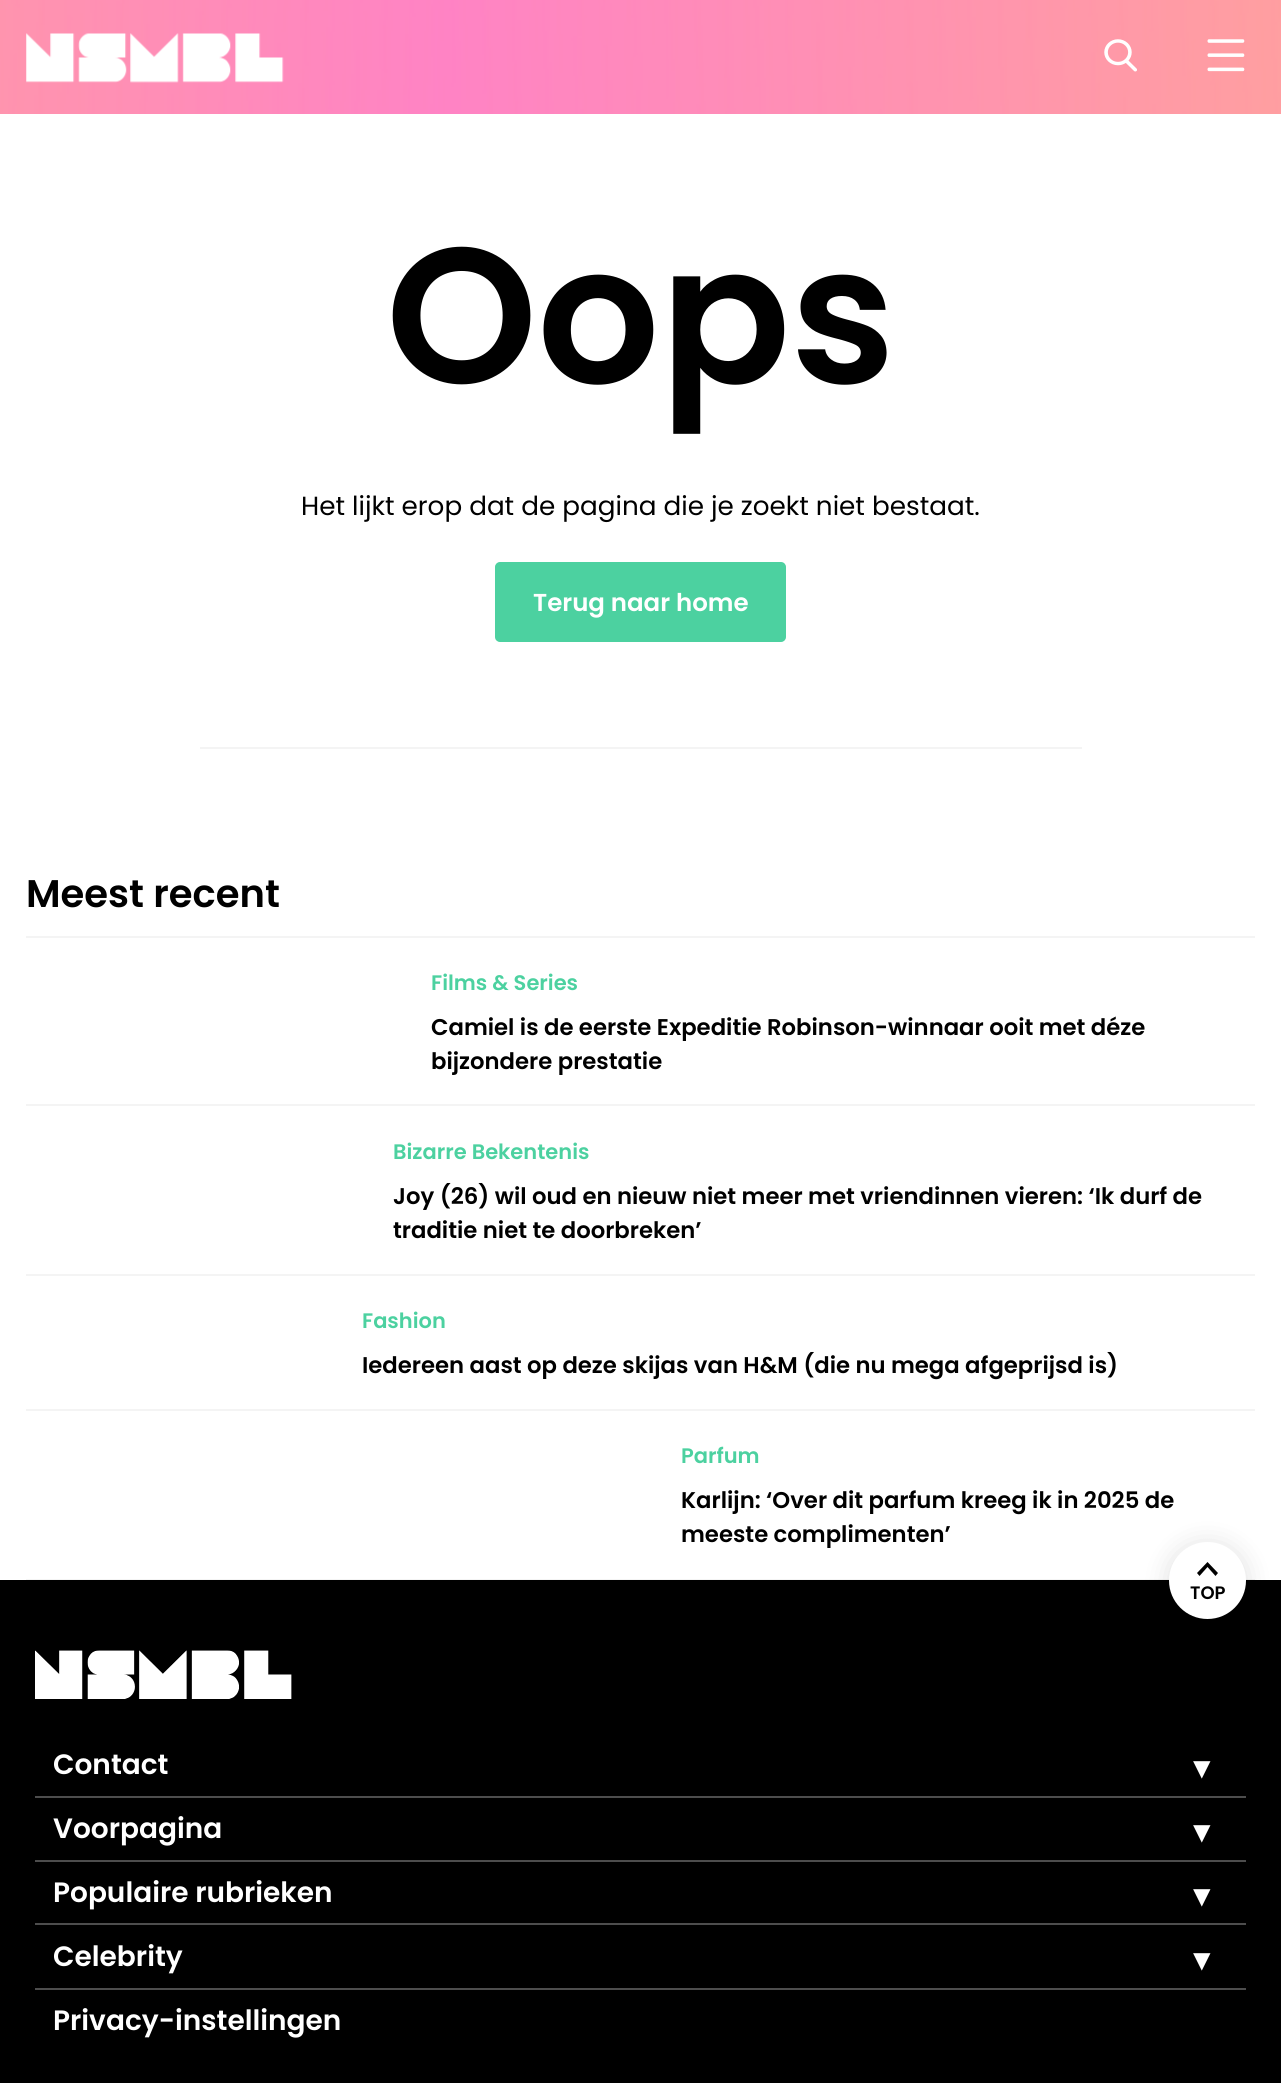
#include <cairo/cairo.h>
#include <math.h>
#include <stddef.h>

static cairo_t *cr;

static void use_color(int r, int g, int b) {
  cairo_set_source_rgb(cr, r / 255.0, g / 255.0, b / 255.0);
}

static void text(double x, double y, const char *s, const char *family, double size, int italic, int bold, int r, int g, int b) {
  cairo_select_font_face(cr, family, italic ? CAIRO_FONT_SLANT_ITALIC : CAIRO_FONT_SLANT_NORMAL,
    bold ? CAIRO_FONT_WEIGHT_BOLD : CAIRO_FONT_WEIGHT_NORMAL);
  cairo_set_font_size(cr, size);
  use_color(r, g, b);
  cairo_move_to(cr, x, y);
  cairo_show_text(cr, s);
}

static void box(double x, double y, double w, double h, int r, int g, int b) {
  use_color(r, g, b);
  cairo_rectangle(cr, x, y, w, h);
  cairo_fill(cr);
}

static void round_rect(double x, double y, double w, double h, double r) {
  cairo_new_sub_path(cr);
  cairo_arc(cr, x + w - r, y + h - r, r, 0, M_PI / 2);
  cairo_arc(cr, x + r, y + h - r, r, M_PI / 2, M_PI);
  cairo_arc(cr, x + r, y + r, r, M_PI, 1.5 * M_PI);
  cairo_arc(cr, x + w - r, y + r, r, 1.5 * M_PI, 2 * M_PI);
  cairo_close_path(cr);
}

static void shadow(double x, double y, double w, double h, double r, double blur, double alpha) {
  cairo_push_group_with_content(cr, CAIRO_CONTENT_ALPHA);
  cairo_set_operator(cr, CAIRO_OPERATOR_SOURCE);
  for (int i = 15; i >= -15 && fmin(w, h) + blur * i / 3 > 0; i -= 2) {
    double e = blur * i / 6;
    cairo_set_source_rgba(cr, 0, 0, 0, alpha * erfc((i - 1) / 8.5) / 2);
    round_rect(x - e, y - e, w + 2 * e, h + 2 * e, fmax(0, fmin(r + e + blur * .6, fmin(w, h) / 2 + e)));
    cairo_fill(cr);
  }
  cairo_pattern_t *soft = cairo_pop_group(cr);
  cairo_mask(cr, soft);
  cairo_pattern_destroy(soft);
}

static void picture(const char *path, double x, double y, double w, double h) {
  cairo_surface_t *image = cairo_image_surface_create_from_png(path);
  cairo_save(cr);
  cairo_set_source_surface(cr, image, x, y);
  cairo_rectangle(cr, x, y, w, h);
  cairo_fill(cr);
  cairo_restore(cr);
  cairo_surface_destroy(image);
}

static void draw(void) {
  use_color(255, 255, 255);
  cairo_paint(cr);
  picture("img_01.png", 0, 0, 1281, 114);
  picture("img_02.png", 26, 33, 258, 50);
  picture("img_03.png", 1104, 39, 33, 33);
  picture("img_04.png", 1207, 39, 38, 33);
  use_color(76, 209, 160);
  round_rect(496, 563, 289, 78, 4);
  cairo_fill_preserve(cr);
  cairo_stroke(cr);
  box(200, 747, 882, 2, 244, 244, 244);
  box(26, 936, 1229, 2, 244, 244, 244);
  box(26, 1104, 1229, 2, 244, 244, 244);
  box(26, 1274, 1229, 2, 244, 244, 244);
  box(26, 1409, 1229, 2, 244, 244, 244);
  box(26, 1579, 1229, 1, 244, 244, 244);
  box(0, 1580, 1281, 503, 0, 0, 0);
  use_color(0, 0, 0);
  shadow(1169, 1545, 77, 77, 38.5, 13, 0.13);
  use_color(255, 255, 255);
  cairo_arc(cr, 1207.5, 1580.5, 38.5, 0, 2 * M_PI);
  cairo_fill(cr);
  use_color(0, 0, 0);
  cairo_new_path(cr);
  cairo_move_to(cr, 1197, 1573);
  cairo_line_to(cr, 1199.5, 1576);
  cairo_line_to(cr, 1207.5, 1567);
  cairo_line_to(cr, 1215.5, 1576);
  cairo_line_to(cr, 1218, 1573);
  cairo_line_to(cr, 1207.5, 1562);
  cairo_close_path(cr);
  cairo_fill(cr);
  picture("img_05.png", 35, 1650, 257, 49);
  box(35, 1796, 1211, 2, 77, 77, 77);
  box(35, 1860, 1211, 2, 77, 77, 77);
  box(35, 1923, 1211, 2, 77, 77, 77);
  box(35, 1988, 1211, 2, 77, 77, 77);
  text(386, 383, "Oops", "Poppins SemiBold", 192.5, 0, 0, 0, 0, 0);
  text(301, 515, "Het lijkt erop dat de pagina die je zoekt niet bestaat.", "Poppins", 26.25, 0, 0, 0, 0, 0);
  text(533, 611, "Terug naar home", "Poppins SemiBold", 24.5, 0, 0, 255, 255, 255);
  text(26, 907, "Meest recent", "Poppins SemiBold", 38.5, 0, 0, 0, 0, 0);
  text(431, 990, "Films & Series", "Poppins SemiBold", 21, 0, 0, 76, 209, 160);
  text(431, 1035, "Camiel is de eerste Expeditie Robinson-winnaar ooit met déze", "Poppins SemiBold", 22.75, 0, 0, 0, 0, 0);
  text(431, 1069, "bijzondere prestatie", "Poppins SemiBold", 22.75, 0, 0, 0, 0, 0);
  text(393, 1159, "Bizarre Bekentenis", "Poppins SemiBold", 21, 0, 0, 76, 209, 160);
  text(393, 1204, "Joy (26) wil oud en nieuw niet meer met vriendinnen vieren: ‘Ik durf de", "Poppins SemiBold", 22.75, 0, 0, 0, 0, 0);
  text(393, 1238, "traditie niet te doorbreken’", "Poppins SemiBold", 22.75, 0, 0, 0, 0, 0);
  text(362, 1328, "Fashion", "Poppins SemiBold", 21, 0, 0, 76, 209, 160);
  text(362, 1373, "Iedereen aast op deze skijas van H&M (die nu mega afgeprijsd is)", "Poppins SemiBold", 22.75, 0, 0, 0, 0, 0);
  text(681, 1463, "Parfum", "Poppins SemiBold", 21, 0, 0, 76, 209, 160);
  text(681, 1508, "Karlijn: ‘Over dit parfum kreeg ik in 2025 de", "Poppins SemiBold", 22.75, 0, 0, 0, 0, 0);
  text(681, 1542, "meeste complimenten’", "Poppins SemiBold", 22.75, 0, 0, 0, 0, 0);
  text(1190, 1599, "TOP", "Poppins SemiBold", 18, 0, 0, 0, 0, 0);
  text(53, 1774, "Contact", "Poppins SemiBold", 28, 0, 0, 255, 255, 255);
  text(1193, 1779, "▾", "DejaVu Sans", 35, 0, 0, 255, 255, 255);
  text(53, 1838, "Voorpagina", "Poppins SemiBold", 28, 0, 0, 255, 255, 255);
  text(1193, 1843, "▾", "DejaVu Sans", 35, 0, 0, 255, 255, 255);
  text(53, 1902, "Populaire rubrieken", "Poppins SemiBold", 28, 0, 0, 255, 255, 255);
  text(1193, 1907, "▾", "DejaVu Sans", 35, 0, 0, 255, 255, 255);
  text(53, 1966, "Celebrity", "Poppins SemiBold", 28, 0, 0, 255, 255, 255);
  text(1193, 1971, "▾", "DejaVu Sans", 35, 0, 0, 255, 255, 255);
  text(53, 2030, "Privacy-instellingen", "Poppins SemiBold", 28, 0, 0, 255, 255, 255);
}

int main(void) {
  cairo_surface_t *surface = cairo_image_surface_create(CAIRO_FORMAT_RGB24, 1281, 2083);
  cr = cairo_create(surface);
  cairo_font_options_t *options = cairo_font_options_create();
  cairo_font_options_set_hint_metrics(options, CAIRO_HINT_METRICS_OFF);
  cairo_font_options_set_hint_style(options, CAIRO_HINT_STYLE_NONE);
  cairo_set_font_options(cr, options);
  cairo_set_miter_limit(cr, 4);
  draw();
  cairo_surface_write_to_png(surface, "out.png");
  cairo_font_options_destroy(options);
  cairo_destroy(cr);
  cairo_surface_destroy(surface);
  return 0;
}
